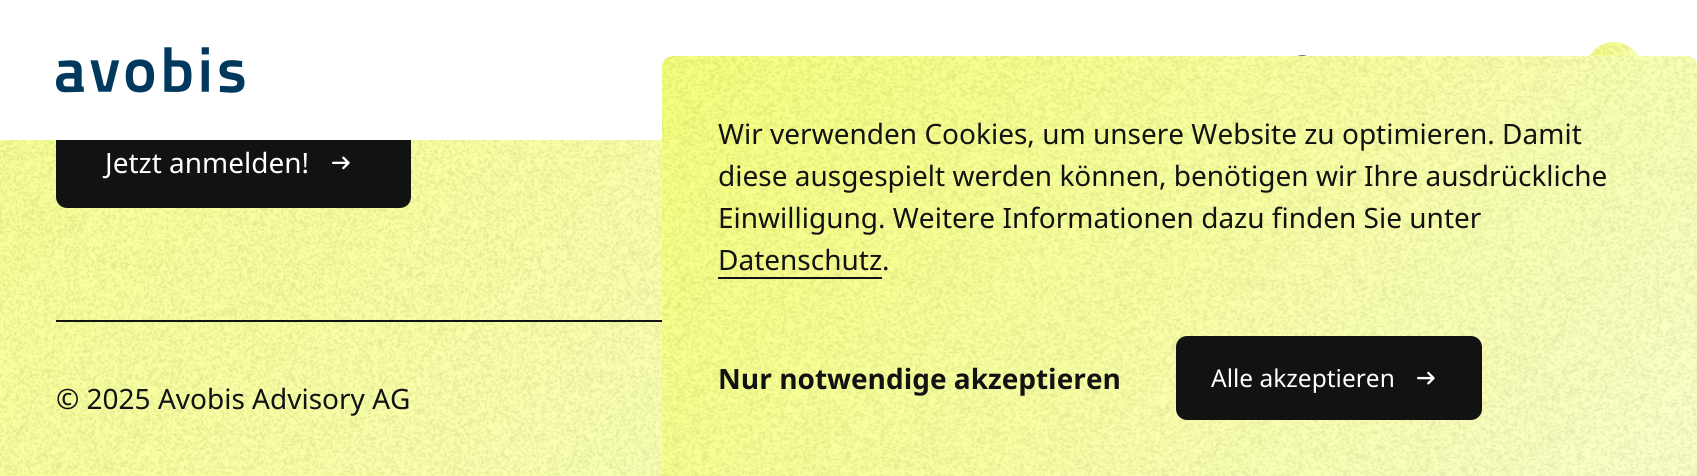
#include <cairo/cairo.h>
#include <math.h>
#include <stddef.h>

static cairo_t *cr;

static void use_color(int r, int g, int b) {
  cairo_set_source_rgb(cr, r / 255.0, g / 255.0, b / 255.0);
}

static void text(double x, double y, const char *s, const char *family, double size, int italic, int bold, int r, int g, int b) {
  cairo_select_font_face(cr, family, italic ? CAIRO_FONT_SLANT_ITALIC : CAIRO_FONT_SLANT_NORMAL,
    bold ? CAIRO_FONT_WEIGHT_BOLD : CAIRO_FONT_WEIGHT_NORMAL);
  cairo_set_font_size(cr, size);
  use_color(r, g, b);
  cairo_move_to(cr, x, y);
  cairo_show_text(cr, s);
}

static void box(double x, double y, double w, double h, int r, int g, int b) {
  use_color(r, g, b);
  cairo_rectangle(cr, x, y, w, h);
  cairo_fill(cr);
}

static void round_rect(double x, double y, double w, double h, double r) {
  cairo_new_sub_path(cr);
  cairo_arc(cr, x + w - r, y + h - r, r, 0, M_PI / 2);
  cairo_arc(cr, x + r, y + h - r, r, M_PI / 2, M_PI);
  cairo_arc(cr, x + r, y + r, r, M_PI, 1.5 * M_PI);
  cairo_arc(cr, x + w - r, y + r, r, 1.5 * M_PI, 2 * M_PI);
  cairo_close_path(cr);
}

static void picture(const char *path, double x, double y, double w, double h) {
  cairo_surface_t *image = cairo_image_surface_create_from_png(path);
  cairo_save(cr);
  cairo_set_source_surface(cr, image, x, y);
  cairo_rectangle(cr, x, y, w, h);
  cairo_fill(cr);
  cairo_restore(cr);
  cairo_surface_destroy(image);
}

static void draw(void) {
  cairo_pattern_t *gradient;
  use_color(255, 255, 255);
  cairo_paint(cr);
  picture("img_01.png", 56, 47, 189, 46);
  picture("img_02.png", 1297, 55, 10, 1);
  gradient = cairo_pattern_create_linear(1684, 112, 1600, 28);
  cairo_pattern_add_color_stop_rgba(gradient, 0, 1, 1, 1, 1);
  cairo_pattern_add_color_stop_rgba(gradient, 1, 0.957, 1, 0.459, 1);
  cairo_set_source(cr, gradient);
  cairo_pattern_destroy(gradient);
  cairo_arc(cr, 1614, 70, 28, 0, 2 * M_PI);
  cairo_fill(cr);
  picture("img_03.png", 1590, 42, 47, 14);
  gradient = cairo_pattern_create_linear(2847, 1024, 548, -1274);
  cairo_pattern_add_color_stop_rgba(gradient, 0, 1, 1, 1, 1);
  cairo_pattern_add_color_stop_rgba(gradient, 1, 0.957, 1, 0.459, 1);
  cairo_set_source(cr, gradient);
  cairo_pattern_destroy(gradient);
  cairo_rectangle(cr, 0, 140, 662, 336);
  cairo_fill(cr);
  picture("img_04.png", 0, 140, 662, 336);
  use_color(18, 18, 18);
  round_rect(56, 117, 355, 91, 11);
  cairo_fill(cr);
  box(56, 117, 355, 23, 255, 255, 255);
  picture("img_05.png", 332, 156, 18, 14);
  box(56, 320, 606, 2, 18, 18, 18);
  gradient = cairo_pattern_create_linear(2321, 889, 1074, -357);
  cairo_pattern_add_color_stop_rgba(gradient, 0, 1, 1, 1, 1);
  cairo_pattern_add_color_stop_rgba(gradient, 1, 0.957, 1, 0.459, 1);
  cairo_set_source(cr, gradient);
  cairo_pattern_destroy(gradient);
  cairo_new_path(cr);
  cairo_move_to(cr, 673, 56);
  cairo_line_to(cr, 1687, 56);
  cairo_curve_to(cr, 1693, 56, 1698, 61, 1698, 67);
  cairo_line_to(cr, 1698, 476);
  cairo_line_to(cr, 662, 476);
  cairo_line_to(cr, 662, 67);
  cairo_curve_to(cr, 662, 61, 667, 56, 673, 56);
  cairo_close_path(cr);
  cairo_fill(cr);
  picture("img_06.png", 662, 56, 1035, 420);
  box(718, 277, 164, 2, 18, 18, 18);
  round_rect(1176, 336, 306, 84, 11);
  cairo_fill(cr);
  picture("img_07.png", 1417, 371, 18, 14);
  text(105, 173, "Jetzt anmelden!", "Noto Sans", 28, 0, 0, 255, 255, 255);
  text(56, 409, "© 2025 Avobis Advisory AG", "Noto Sans", 28, 0, 0, 18, 18, 18);
  text(718, 144, "Wir verwenden Cookies, um unsere Website zu optimieren. Damit", "Noto Sans", 28, 0, 0, 18, 18, 18);
  text(718, 186, "diese ausgespielt werden können, benötigen wir Ihre ausdrückliche", "Noto Sans", 28, 0, 0, 18, 18, 18);
  text(718, 228, "Einwilligung. Weitere Informationen dazu finden Sie unter", "Noto Sans", 28, 0, 0, 18, 18, 18);
  text(718, 270, "Datenschutz", "Noto Sans", 28, 0, 0, 18, 18, 18);
  text(882, 270, ".", "Noto Sans", 28, 0, 0, 18, 18, 18);
  text(718, 389, "Nur notwendige akzeptieren", "Noto Sans", 28, 0, 1, 18, 18, 18);
  text(1211, 387, "Alle akzeptieren", "Noto Sans", 24.5, 0, 0, 255, 255, 255);
}

int main(void) {
  cairo_surface_t *surface = cairo_image_surface_create(CAIRO_FORMAT_RGB24, 1697, 476);
  cr = cairo_create(surface);
  cairo_font_options_t *options = cairo_font_options_create();
  cairo_font_options_set_hint_metrics(options, CAIRO_HINT_METRICS_OFF);
  cairo_font_options_set_hint_style(options, CAIRO_HINT_STYLE_NONE);
  cairo_set_font_options(cr, options);
  cairo_set_miter_limit(cr, 4);
  draw();
  cairo_surface_write_to_png(surface, "out.png");
  cairo_font_options_destroy(options);
  cairo_destroy(cr);
  cairo_surface_destroy(surface);
  return 0;
}
